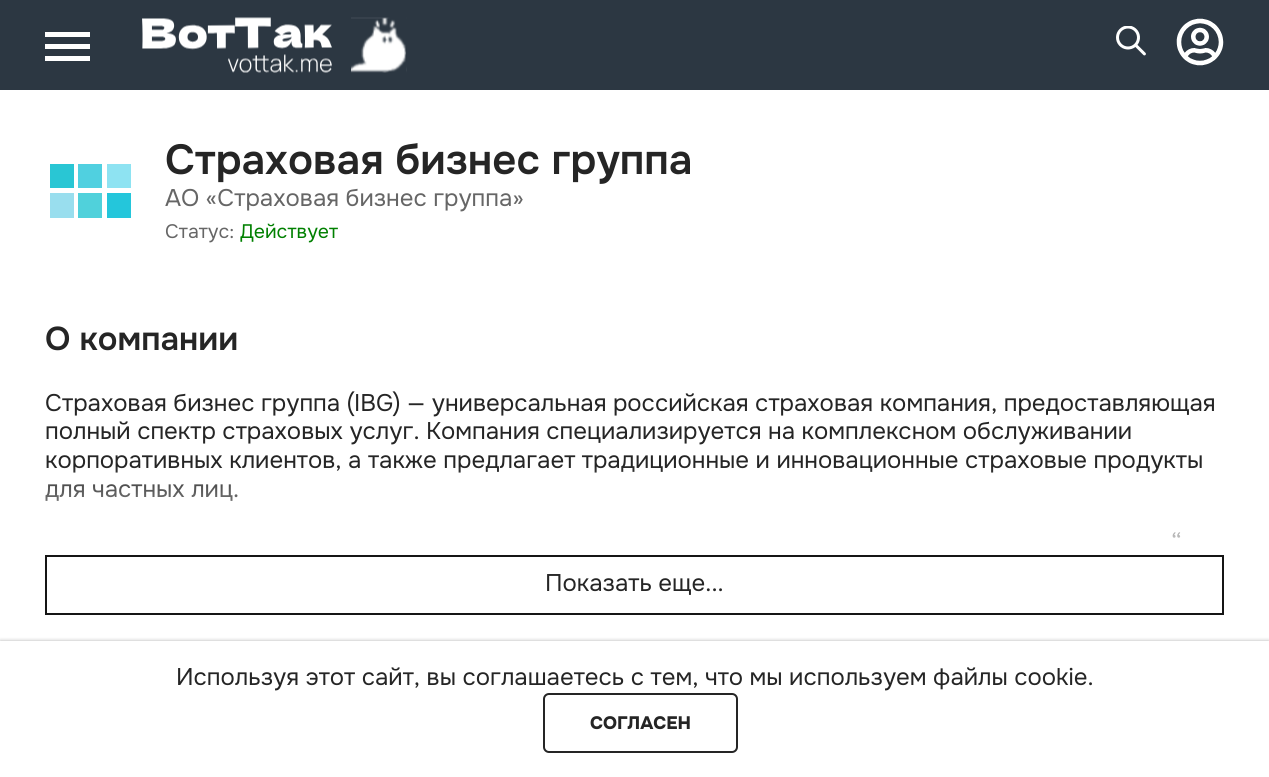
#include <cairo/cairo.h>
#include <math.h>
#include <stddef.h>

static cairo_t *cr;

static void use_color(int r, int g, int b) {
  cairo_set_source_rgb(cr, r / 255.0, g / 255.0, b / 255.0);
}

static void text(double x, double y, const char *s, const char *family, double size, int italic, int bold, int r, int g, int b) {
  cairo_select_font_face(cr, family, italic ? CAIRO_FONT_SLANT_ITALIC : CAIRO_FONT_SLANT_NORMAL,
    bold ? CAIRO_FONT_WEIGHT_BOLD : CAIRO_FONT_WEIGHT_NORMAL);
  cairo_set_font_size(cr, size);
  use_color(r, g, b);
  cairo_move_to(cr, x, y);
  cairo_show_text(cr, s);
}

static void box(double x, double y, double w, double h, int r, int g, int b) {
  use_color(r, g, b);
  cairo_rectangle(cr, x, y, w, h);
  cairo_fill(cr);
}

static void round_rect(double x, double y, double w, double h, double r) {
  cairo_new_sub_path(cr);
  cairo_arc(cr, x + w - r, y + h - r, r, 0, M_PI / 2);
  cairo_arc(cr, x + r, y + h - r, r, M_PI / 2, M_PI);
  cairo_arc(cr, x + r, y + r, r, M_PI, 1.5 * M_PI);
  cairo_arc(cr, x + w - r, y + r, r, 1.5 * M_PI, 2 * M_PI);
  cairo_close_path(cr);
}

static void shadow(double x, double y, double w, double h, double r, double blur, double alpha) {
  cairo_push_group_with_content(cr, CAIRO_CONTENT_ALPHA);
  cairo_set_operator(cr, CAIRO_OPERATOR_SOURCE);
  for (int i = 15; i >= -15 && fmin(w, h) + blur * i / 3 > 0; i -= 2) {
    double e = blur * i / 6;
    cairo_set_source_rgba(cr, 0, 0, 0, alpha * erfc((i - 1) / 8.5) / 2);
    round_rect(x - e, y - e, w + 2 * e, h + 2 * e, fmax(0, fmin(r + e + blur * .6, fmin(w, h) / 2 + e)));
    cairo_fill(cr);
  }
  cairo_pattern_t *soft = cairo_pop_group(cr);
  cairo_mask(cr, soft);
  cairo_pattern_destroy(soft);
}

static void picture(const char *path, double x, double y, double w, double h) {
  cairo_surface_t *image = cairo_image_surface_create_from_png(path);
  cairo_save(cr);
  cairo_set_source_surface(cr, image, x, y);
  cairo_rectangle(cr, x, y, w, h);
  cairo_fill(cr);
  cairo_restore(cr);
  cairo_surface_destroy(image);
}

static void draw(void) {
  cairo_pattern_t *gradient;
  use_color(255, 255, 255);
  cairo_paint(cr);
  box(0, 0, 1269, 90, 44, 55, 66);
  box(45, 32, 45, 5, 255, 255, 255);
  box(45, 44, 45, 5, 255, 255, 255);
  box(45, 56, 45, 5, 255, 255, 255);
  picture("img_01.png", 142, 17, 265, 56);
  picture("img_02.png", 1116, 26, 30, 30);
  picture("img_03.png", 1176, 18, 48, 48);
  box(50, 164, 24, 24, 41, 198, 212);
  box(78, 164, 24, 24, 80, 208, 224);
  box(107, 164, 24, 24, 142, 227, 242);
  box(50, 193, 24, 25, 153, 222, 238);
  box(78, 193, 24, 25, 80, 209, 219);
  box(107, 193, 24, 25, 36, 198, 219);
  cairo_rectangle(cr, 46, 556, 1177, 58);
  use_color(21, 21, 21);
  cairo_stroke(cr);
  use_color(0, 0, 0);
  shadow(0, 641, 1269, 136, 0, 2, 0.3);
  box(0, 641, 1269, 136, 255, 255, 255);
  round_rect(544, 694, 193, 58, 5);
  use_color(37, 37, 37);
  cairo_stroke(cr);
  text(165, 174, "Страховая бизнес группа", "Onest SemiBold", 42, 0, 0, 37, 37, 37);
  text(165, 206, "АО «Страховая бизнес группа»", "Onest", 24, 0, 0, 102, 102, 102);
  text(165, 238, "Статус:", "Onest", 19.5, 0, 0, 102, 102, 102);
  text(240, 238, "Действует", "Onest", 19.5, 0, 0, 0, 128, 0);
  text(45, 350, "О компании", "Onest SemiBold", 33, 0, 0, 37, 37, 37);
  text(45, 411, "Страховая бизнес группа (IBG) — универсальная российская страховая компания, предоставляющая", "Onest", 24, 0, 0, 37, 37, 37);
  text(45, 439, "полный спектр страховых услуг. Компания специализируется на комплексном обслуживании", "Onest", 24, 0, 0, 37, 37, 37);
  text(45, 468, "корпоративных клиентов, а также предлагает традиционные и инновационные страховые продукты", "Onest", 24, 0, 0, 37, 37, 37);
  text(45, 497, "для частных лиц.", "Onest", 24, 0, 0, 37, 37, 37);
  text(1171, 550, "“", "Onest", 24, 0, 0, 37, 37, 37);
  gradient = cairo_pattern_create_linear(635, 615, 635, 465);
  cairo_pattern_add_color_stop_rgba(gradient, 0, 1, 1, 1, 1);
  cairo_pattern_add_color_stop_rgba(gradient, 0.3, 1, 1, 1, 1);
  cairo_pattern_add_color_stop_rgba(gradient, 1, 1, 1, 1, 0);
  cairo_set_source(cr, gradient);
  cairo_pattern_destroy(gradient);
  cairo_rectangle(cr, 45, 467, 1157, 71);
  cairo_fill(cr);
  text(545, 591, "Показать еще...", "Onest", 24, 0, 0, 37, 37, 37);
  text(176, 685, "Используя этот сайт, вы соглашаетесь с тем, что мы используем файлы cookie.", "Onest", 24, 0, 0, 37, 37, 37);
  text(590, 729, "СОГЛАСЕН", "Onest ExtraBold", 18, 0, 0, 37, 37, 37);
}

int main(void) {
  cairo_surface_t *surface = cairo_image_surface_create(CAIRO_FORMAT_RGB24, 1269, 777);
  cr = cairo_create(surface);
  cairo_font_options_t *options = cairo_font_options_create();
  cairo_font_options_set_hint_metrics(options, CAIRO_HINT_METRICS_OFF);
  cairo_font_options_set_hint_style(options, CAIRO_HINT_STYLE_NONE);
  cairo_set_font_options(cr, options);
  cairo_set_miter_limit(cr, 4);
  draw();
  cairo_surface_write_to_png(surface, "out.png");
  cairo_font_options_destroy(options);
  cairo_destroy(cr);
  cairo_surface_destroy(surface);
  return 0;
}
